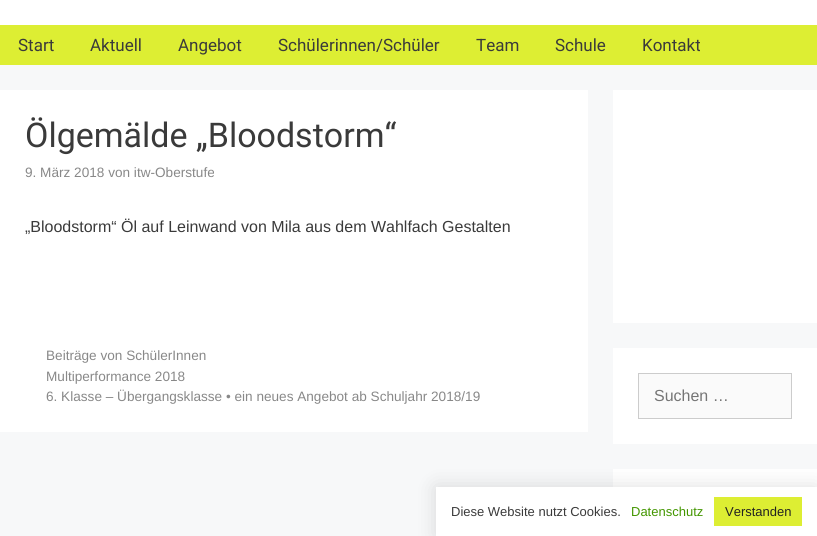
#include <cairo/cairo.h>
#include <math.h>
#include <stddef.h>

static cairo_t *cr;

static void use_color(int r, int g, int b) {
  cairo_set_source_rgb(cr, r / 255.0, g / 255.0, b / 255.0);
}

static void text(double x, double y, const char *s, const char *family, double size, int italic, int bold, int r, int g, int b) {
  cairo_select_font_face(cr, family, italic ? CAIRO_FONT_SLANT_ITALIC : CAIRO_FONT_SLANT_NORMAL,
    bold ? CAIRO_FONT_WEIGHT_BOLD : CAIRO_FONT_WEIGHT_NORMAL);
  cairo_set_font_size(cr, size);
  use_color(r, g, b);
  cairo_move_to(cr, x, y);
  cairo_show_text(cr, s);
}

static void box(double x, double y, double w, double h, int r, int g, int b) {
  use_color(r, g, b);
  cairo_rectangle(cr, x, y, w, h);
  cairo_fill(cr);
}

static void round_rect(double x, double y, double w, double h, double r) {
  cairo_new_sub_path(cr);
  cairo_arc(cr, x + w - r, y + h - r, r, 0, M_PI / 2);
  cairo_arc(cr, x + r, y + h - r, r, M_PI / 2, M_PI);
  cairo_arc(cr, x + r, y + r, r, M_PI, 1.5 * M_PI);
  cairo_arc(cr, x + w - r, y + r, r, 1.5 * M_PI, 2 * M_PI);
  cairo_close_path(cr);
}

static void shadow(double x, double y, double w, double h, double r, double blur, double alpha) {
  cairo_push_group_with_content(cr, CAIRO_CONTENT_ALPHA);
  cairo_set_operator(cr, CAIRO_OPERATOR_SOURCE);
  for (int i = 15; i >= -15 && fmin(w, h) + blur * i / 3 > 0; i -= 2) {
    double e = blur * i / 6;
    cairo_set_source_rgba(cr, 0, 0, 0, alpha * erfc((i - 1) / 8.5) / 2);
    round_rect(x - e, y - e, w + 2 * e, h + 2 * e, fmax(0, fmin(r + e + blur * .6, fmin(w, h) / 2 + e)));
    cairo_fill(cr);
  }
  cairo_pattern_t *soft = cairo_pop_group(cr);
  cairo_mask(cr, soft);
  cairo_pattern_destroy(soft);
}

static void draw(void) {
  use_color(247, 248, 249);
  cairo_paint(cr);
  box(0, 0, 817, 25, 255, 255, 255);
  box(0, 25, 817, 40, 221, 238, 51);
  box(0, 90, 588, 342, 255, 255, 255);
  box(613, 90, 204, 233, 255, 255, 255);
  box(613, 348, 204, 96, 255, 255, 255);
  use_color(250, 250, 250);
  cairo_rectangle(cr, 638.5, 373.5, 153, 45);
  cairo_fill_preserve(cr);
  use_color(204, 204, 204);
  cairo_set_line_width(cr, 1);
  cairo_stroke(cr);
  box(613, 469, 204, 18, 255, 255, 255);
  use_color(0, 0, 0);
  shadow(436, 487, 381, 49, 0, 10, 0.13);
  box(436, 487, 381, 49, 255, 255, 255);
  box(714, 497, 88, 29, 221, 238, 51);
  text(18, 51, "Start", "Roboto", 17, 0, 0, 58, 58, 58);
  text(90, 51, "Aktuell", "Roboto", 17, 0, 0, 58, 58, 58);
  text(178, 51, "Angebot", "Roboto", 17, 0, 0, 58, 58, 58);
  text(278, 51, "Schülerinnen/Schüler", "Roboto", 17, 0, 0, 58, 58, 58);
  text(476, 51, "Team", "Roboto", 17, 0, 0, 58, 58, 58);
  text(555, 51, "Schule", "Roboto", 17, 0, 0, 58, 58, 58);
  text(642, 51, "Kontakt", "Roboto", 17, 0, 0, 58, 58, 58);
  text(25, 147, "Ölgemälde „Bloodstorm“", "Roboto", 34, 0, 0, 58, 58, 58);
  text(25, 177, "9. März 2018 von itw-Oberstufe", "Liberation Sans", 13.6, 0, 0, 136, 136, 136);
  text(25, 232, "„Bloodstorm“ Öl auf Leinwand von Mila aus dem Wahlfach Gestalten", "Liberation Sans", 16, 0, 0, 58, 58, 58);
  text(46, 360, "Beiträge von SchülerInnen", "Liberation Sans", 13.6, 0, 0, 136, 136, 136);
  text(46, 381, "Multiperformance 2018", "Liberation Sans", 13.6, 0, 0, 136, 136, 136);
  text(46, 401, "6. Klasse – Übergangsklasse • ein neues Angebot ab Schuljahr 2018/19", "Liberation Sans", 13.6, 0, 0, 136, 136, 136);
  text(654, 401, "Suchen …", "Liberation Sans", 16, 0, 0, 117, 117, 117);
  text(451, 516, "Diese Website nutzt Cookies.", "Liberation Sans", 13, 0, 0, 58, 58, 58);
  text(631, 516, "Datenschutz", "Liberation Sans", 13, 0, 0, 67, 150, 0);
  text(725, 516, "Verstanden", "Liberation Sans", 13, 0, 0, 34, 34, 34);
}

int main(void) {
  cairo_surface_t *surface = cairo_image_surface_create(CAIRO_FORMAT_RGB24, 817, 536);
  cr = cairo_create(surface);
  cairo_font_options_t *options = cairo_font_options_create();
  cairo_font_options_set_hint_metrics(options, CAIRO_HINT_METRICS_OFF);
  cairo_font_options_set_hint_style(options, CAIRO_HINT_STYLE_NONE);
  cairo_set_font_options(cr, options);
  cairo_set_miter_limit(cr, 4);
  draw();
  cairo_surface_write_to_png(surface, "out.png");
  cairo_font_options_destroy(options);
  cairo_destroy(cr);
  cairo_surface_destroy(surface);
  return 0;
}
